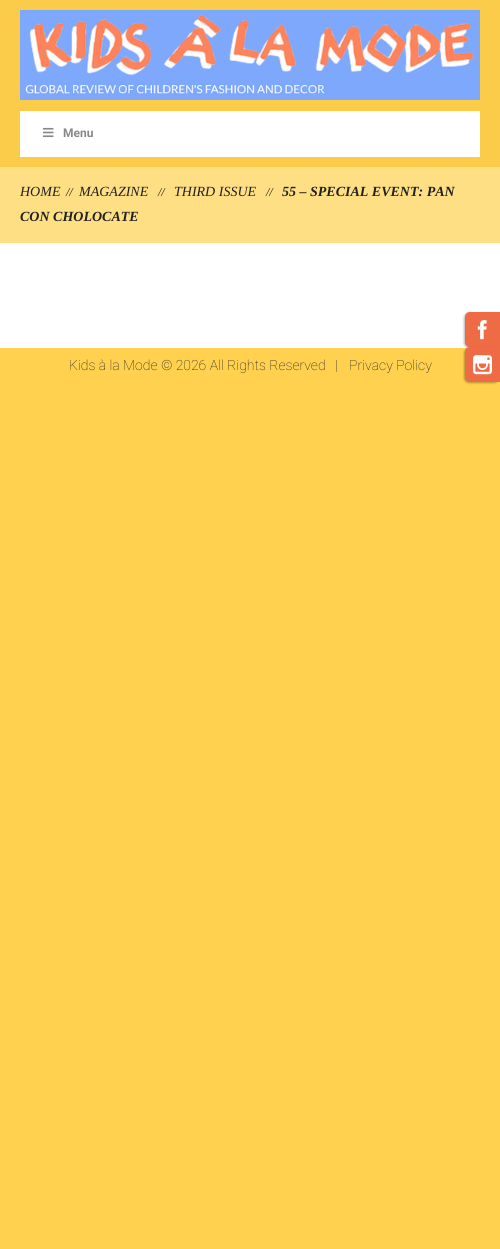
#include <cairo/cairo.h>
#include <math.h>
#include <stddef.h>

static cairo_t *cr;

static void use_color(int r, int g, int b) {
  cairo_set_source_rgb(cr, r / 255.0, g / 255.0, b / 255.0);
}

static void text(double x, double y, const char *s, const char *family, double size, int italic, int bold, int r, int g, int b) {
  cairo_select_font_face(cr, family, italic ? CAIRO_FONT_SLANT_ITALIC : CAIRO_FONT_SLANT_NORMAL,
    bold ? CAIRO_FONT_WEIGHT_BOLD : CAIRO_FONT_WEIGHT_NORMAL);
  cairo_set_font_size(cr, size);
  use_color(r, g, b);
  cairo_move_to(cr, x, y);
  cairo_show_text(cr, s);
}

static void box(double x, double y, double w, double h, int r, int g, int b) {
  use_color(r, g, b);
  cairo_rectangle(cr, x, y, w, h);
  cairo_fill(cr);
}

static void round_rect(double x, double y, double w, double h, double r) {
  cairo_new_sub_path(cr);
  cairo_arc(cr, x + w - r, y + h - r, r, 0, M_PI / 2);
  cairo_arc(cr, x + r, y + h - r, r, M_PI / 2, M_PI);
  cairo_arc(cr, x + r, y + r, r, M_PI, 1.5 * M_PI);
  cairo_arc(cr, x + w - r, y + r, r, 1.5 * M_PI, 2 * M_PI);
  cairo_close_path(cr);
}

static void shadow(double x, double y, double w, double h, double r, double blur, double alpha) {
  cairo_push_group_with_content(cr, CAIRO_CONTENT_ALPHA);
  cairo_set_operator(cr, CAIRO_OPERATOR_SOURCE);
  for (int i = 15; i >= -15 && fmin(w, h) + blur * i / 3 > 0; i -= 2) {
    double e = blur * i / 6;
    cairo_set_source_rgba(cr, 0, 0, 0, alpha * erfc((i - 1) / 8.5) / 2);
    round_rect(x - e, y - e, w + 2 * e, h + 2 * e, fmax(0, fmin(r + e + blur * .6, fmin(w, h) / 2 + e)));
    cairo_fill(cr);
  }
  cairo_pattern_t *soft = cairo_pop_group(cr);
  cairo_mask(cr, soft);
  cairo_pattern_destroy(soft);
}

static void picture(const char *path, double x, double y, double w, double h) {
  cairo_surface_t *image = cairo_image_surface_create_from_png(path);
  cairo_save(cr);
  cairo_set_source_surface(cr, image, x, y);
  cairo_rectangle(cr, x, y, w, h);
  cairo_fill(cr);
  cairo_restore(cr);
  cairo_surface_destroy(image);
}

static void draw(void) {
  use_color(255, 209, 79);
  cairo_paint(cr);
  box(0, 0, 500, 167, 251, 204, 73);
  picture("img_01.png", 20, 10, 460, 90);
  box(20, 111, 460, 46, 255, 255, 255);
  picture("img_02.png", 43, 127, 11, 11);
  box(0, 243, 500, 105, 255, 255, 255);
  box(0, 167, 20, 76, 255, 223, 131);
  box(20, 167, 480, 76, 255, 223, 131);
  use_color(0, 0, 0);
  shadow(464, 313, 35, 35, 5, 1, 0.3);
  use_color(238, 107, 70);
  cairo_new_path(cr);
  cairo_move_to(cr, 470, 312);
  cairo_line_to(cr, 500, 312);
  cairo_line_to(cr, 500, 347);
  cairo_line_to(cr, 470, 347);
  cairo_curve_to(cr, 467, 347, 465, 345, 465, 342);
  cairo_line_to(cr, 465, 317);
  cairo_curve_to(cr, 465, 314, 467, 312, 470, 312);
  cairo_close_path(cr);
  cairo_fill(cr);
  picture("img_03.png", 477, 320, 10, 20);
  use_color(0, 0, 0);
  shadow(464, 348, 35, 35, 5, 1, 0.3);
  use_color(238, 107, 70);
  cairo_new_path(cr);
  cairo_move_to(cr, 470, 347);
  cairo_line_to(cr, 500, 347);
  cairo_line_to(cr, 500, 382);
  cairo_line_to(cr, 470, 382);
  cairo_curve_to(cr, 467, 382, 465, 380, 465, 377);
  cairo_line_to(cr, 465, 352);
  cairo_curve_to(cr, 465, 349, 467, 347, 470, 347);
  cairo_close_path(cr);
  cairo_fill(cr);
  picture("img_04.png", 473, 355, 19, 20);
  text(63, 137, "Menu", "Roboto", 12, 0, 1, 136, 136, 136);
  text(20, 196, "HOME", "Liberation Serif", 14, 1, 0, 32, 32, 32);
  text(66, 196, "//", "Liberation Serif", 12, 1, 0, 32, 32, 32);
  text(79, 196, "MAGAZINE", "Liberation Serif", 14, 1, 0, 32, 32, 32);
  text(158, 196, "//", "Liberation Serif", 12, 1, 0, 32, 32, 32);
  text(174, 196, "THIRD ISSUE", "Liberation Serif", 14, 1, 0, 32, 32, 32);
  text(266, 196, "//", "Liberation Serif", 12, 1, 0, 32, 32, 32);
  text(282, 196, "55 – SPECIAL EVENT: PAN", "Liberation Serif", 14, 1, 1, 32, 32, 32);
  text(20, 221, "CON CHOLOCATE", "Liberation Serif", 14, 1, 1, 32, 32, 32);
  text(69, 370, "Kids à la Mode © 2026 All Rights Reserved", "Roboto Thin", 14, 0, 0, 32, 32, 32);
  text(335, 370, "|", "Roboto Thin", 14, 0, 0, 32, 32, 32);
  text(349, 370, "Privacy Policy", "Roboto Thin", 14, 0, 0, 32, 32, 32);
}

int main(void) {
  cairo_surface_t *surface = cairo_image_surface_create(CAIRO_FORMAT_RGB24, 500, 1249);
  cr = cairo_create(surface);
  cairo_font_options_t *options = cairo_font_options_create();
  cairo_font_options_set_hint_metrics(options, CAIRO_HINT_METRICS_OFF);
  cairo_font_options_set_hint_style(options, CAIRO_HINT_STYLE_NONE);
  cairo_set_font_options(cr, options);
  cairo_set_miter_limit(cr, 4);
  draw();
  cairo_surface_write_to_png(surface, "out.png");
  cairo_font_options_destroy(options);
  cairo_destroy(cr);
  cairo_surface_destroy(surface);
  return 0;
}
